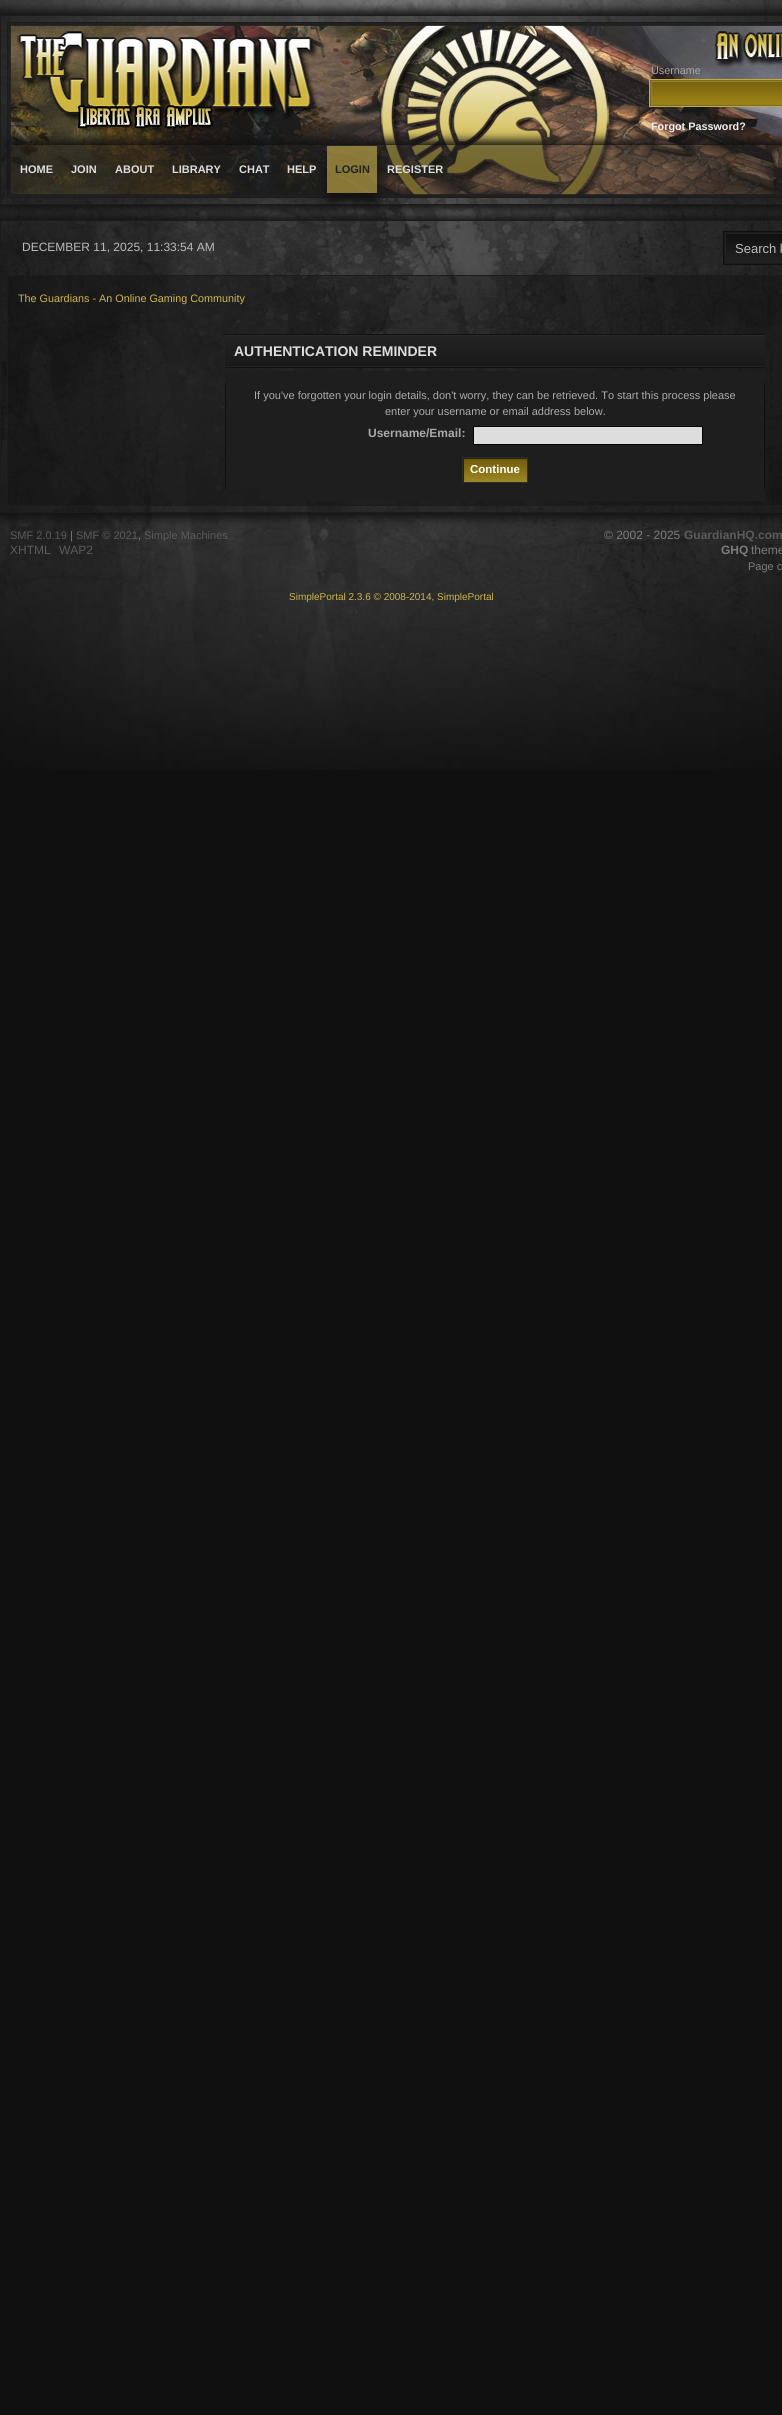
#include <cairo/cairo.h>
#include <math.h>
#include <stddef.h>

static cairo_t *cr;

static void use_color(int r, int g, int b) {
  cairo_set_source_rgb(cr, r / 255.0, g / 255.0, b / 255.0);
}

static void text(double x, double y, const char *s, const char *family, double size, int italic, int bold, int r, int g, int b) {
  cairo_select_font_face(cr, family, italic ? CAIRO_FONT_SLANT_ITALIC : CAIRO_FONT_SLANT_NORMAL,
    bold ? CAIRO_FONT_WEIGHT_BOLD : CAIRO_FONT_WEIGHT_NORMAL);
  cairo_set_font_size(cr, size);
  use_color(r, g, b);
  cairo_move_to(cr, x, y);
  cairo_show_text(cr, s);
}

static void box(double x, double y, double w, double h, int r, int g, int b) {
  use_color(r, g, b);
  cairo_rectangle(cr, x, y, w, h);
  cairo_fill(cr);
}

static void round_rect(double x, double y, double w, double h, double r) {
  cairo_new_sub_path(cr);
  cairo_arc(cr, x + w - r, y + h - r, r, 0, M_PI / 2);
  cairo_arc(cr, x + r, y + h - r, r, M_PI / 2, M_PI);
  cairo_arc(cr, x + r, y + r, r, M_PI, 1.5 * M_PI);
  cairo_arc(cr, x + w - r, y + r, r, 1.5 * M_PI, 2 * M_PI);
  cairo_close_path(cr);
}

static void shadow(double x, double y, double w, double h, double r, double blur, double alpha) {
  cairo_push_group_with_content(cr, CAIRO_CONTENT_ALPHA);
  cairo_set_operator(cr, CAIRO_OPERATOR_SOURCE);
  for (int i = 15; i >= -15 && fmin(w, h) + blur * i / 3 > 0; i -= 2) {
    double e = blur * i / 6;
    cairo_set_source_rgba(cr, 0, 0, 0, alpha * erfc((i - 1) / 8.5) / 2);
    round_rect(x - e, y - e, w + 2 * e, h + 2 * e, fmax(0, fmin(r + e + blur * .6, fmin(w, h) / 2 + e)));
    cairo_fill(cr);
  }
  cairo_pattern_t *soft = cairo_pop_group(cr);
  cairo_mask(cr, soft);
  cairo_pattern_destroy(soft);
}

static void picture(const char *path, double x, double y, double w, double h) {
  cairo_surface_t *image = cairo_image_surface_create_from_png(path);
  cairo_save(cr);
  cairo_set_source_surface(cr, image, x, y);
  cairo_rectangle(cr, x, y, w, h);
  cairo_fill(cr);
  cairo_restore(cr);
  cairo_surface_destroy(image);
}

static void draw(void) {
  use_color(16, 16, 16);
  cairo_paint(cr);
  picture("img_01.png", 0, 0, 782, 770);
  cairo_save(cr);
  cairo_set_fill_rule(cr, CAIRO_FILL_RULE_EVEN_ODD);
  cairo_new_path(cr);
  cairo_move_to(cr, 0, 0);
  cairo_line_to(cr, 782, 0);
  cairo_line_to(cr, 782, 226);
  cairo_line_to(cr, 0, 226);
  cairo_close_path(cr);
  cairo_move_to(cr, 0, 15);
  cairo_line_to(cr, 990, 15);
  cairo_line_to(cr, 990, 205);
  cairo_line_to(cr, 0, 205);
  cairo_close_path(cr);
  cairo_clip(cr);
  use_color(17, 17, 17);
  shadow(-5, 10, 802, 200, 0, 5, 1);
  cairo_restore(cr);
  cairo_set_source_rgba(cr, 0.059, 0.059, 0.059, 0.4);
  cairo_rectangle(cr, 0.5, 15.5, 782, 189);
  cairo_fill_preserve(cr);
  use_color(28, 28, 28);
  cairo_set_line_width(cr, 1);
  cairo_stroke(cr);
  picture("img_02.png", 8, 23, 774, 174);
  cairo_rectangle(cr, 7.5, 22.5, 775, 175);
  cairo_stroke(cr);
  picture("img_03.png", 649, 79, 133, 28);
  cairo_save(cr);
  cairo_set_fill_rule(cr, CAIRO_FILL_RULE_EVEN_ODD);
  cairo_new_path(cr);
  cairo_move_to(cr, 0, 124);
  cairo_line_to(cr, 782, 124);
  cairo_line_to(cr, 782, 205);
  cairo_line_to(cr, 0, 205);
  cairo_close_path(cr);
  cairo_move_to(cr, 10, 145);
  cairo_line_to(cr, 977, 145);
  cairo_line_to(cr, 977, 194);
  cairo_line_to(cr, 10, 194);
  cairo_close_path(cr);
  cairo_clip(cr);
  use_color(17, 17, 17);
  shadow(10, 140, 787, 49, 0, 5, 1);
  cairo_restore(cr);
  cairo_set_source_rgba(cr, 0.11, 0.11, 0.11, 0.5);
  cairo_rectangle(cr, 10, 145, 772, 49);
  cairo_fill(cr);
  cairo_save(cr);
  cairo_set_fill_rule(cr, CAIRO_FILL_RULE_EVEN_ODD);
  cairo_new_path(cr);
  cairo_move_to(cr, 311, 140);
  cairo_line_to(cr, 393, 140);
  cairo_line_to(cr, 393, 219);
  cairo_line_to(cr, 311, 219);
  cairo_close_path(cr);
  cairo_move_to(cr, 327, 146);
  cairo_line_to(cr, 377, 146);
  cairo_line_to(cr, 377, 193);
  cairo_line_to(cr, 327, 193);
  cairo_close_path(cr);
  cairo_clip(cr);
  use_color(17, 17, 17);
  shadow(327, 156, 50, 47, 0, 5, 1);
  cairo_restore(cr);
  cairo_set_source_rgba(cr, 0.808, 0.71, 0.294, 0.6);
  cairo_rectangle(cr, 327, 146, 50, 47);
  cairo_fill(cr);
  cairo_save(cr);
  cairo_set_fill_rule(cr, CAIRO_FILL_RULE_EVEN_ODD);
  cairo_new_path(cr);
  cairo_move_to(cr, 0, 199);
  cairo_line_to(cr, 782, 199);
  cairo_line_to(cr, 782, 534);
  cairo_line_to(cr, 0, 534);
  cairo_close_path(cr);
  cairo_move_to(cr, 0, 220);
  cairo_line_to(cr, 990, 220);
  cairo_line_to(cr, 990, 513);
  cairo_line_to(cr, 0, 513);
  cairo_close_path(cr);
  cairo_clip(cr);
  use_color(17, 17, 17);
  shadow(-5, 215, 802, 303, 0, 5, 1);
  cairo_restore(cr);
  cairo_set_source_rgba(cr, 0.059, 0.059, 0.059, 0.4);
  cairo_rectangle(cr, 0.5, 220.5, 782, 292);
  cairo_fill_preserve(cr);
  use_color(28, 28, 28);
  cairo_stroke(cr);
  picture("img_04.png", 723, 231, 59, 34);
  cairo_set_source_rgba(cr, 0.059, 0.059, 0.059, 0.4);
  cairo_rectangle(cr, 7.5, 275.5, 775, 230);
  cairo_fill_preserve(cr);
  use_color(28, 28, 28);
  cairo_stroke(cr);
  picture("img_05.png", 225, 334, 540, 34);
  box(225, 371, 540, 12, 30, 30, 30);
  box(226, 383, 538, 106, 30, 30, 30);
  box(764, 383, 1, 106, 16, 16, 16);
  box(225, 383, 1, 106, 16, 16, 16);
  use_color(221, 221, 221);
  cairo_rectangle(cr, 473.5, 426.5, 229, 18);
  cairo_fill_preserve(cr);
  use_color(0, 0, 0);
  cairo_stroke(cr);
  picture("img_06.png", 463, 458, 64, 24);
  cairo_rectangle(cr, 462.5, 457.5, 65, 25);
  use_color(44, 44, 44);
  cairo_stroke(cr);
  box(259, 489, 506, 12, 30, 30, 30);
  text(651, 74, "Username", "Liberation Sans", 10.8, 0, 0, 170, 170, 170);
  text(651, 130, "Forgot Password?", "Liberation Sans", 10.8, 0, 1, 238, 238, 238);
  text(20, 173, "HOME", "Liberation Sans", 11, 0, 1, 221, 221, 221);
  text(71, 173, "JOIN", "Liberation Sans", 11, 0, 1, 221, 221, 221);
  text(115, 173, "ABOUT", "Liberation Sans", 11, 0, 1, 221, 221, 221);
  text(172, 173, "LIBRARY", "Liberation Sans", 11, 0, 1, 221, 221, 221);
  text(239, 173, "CHAT", "Liberation Sans", 11, 0, 1, 221, 221, 221);
  text(287, 173, "HELP", "Liberation Sans", 11, 0, 1, 221, 221, 221);
  text(335, 173, "LOGIN", "Liberation Sans", 11, 0, 1, 34, 34, 34);
  text(387, 173, "REGISTER", "Liberation Sans", 11, 0, 1, 221, 221, 221);
  text(22, 251, "DECEMBER 11, 2025, 11:33:54 AM", "Liberation Sans", 12, 0, 0, 187, 187, 187);
  text(735, 253, "Search k", "Liberation Sans", 13, 0, 0, 187, 187, 187);
  text(18, 302, "The Guardians - An Online Gaming Community", "Liberation Sans", 10.8, 0, 0, 206, 181, 75);
  text(234, 356, "AUTHENTICATION REMINDER", "Liberation Sans", 14, 0, 1, 221, 221, 221);
  text(254, 399, "If you've forgotten your login details, don't worry, they can be retrieved. To start this process please", "Liberation Sans", 11, 0, 0, 170, 170, 170);
  text(385, 415, "enter your username or email address below.", "Liberation Sans", 11, 0, 0, 170, 170, 170);
  text(368, 437, "Username/Email:", "Liberation Sans", 12, 0, 1, 170, 170, 170);
  text(470, 473, "Continue", "Liberation Sans", 11.5, 0, 1, 255, 255, 255);
  text(10, 539, "SMF 2.0.19", "Liberation Sans", 11, 0, 0, 91, 91, 91);
  text(70, 539, "|", "Liberation Sans", 11, 0, 0, 124, 124, 124);
  text(76, 539, "SMF © 2021", "Liberation Sans", 11, 0, 0, 91, 91, 91);
  text(138, 539, ",", "Liberation Sans", 11, 0, 0, 124, 124, 124);
  text(144, 539, "Simple Machines", "Liberation Sans", 11, 0, 0, 91, 91, 91);
  text(10, 554, "XHTML", "Liberation Sans", 12, 0, 0, 91, 91, 91);
  text(59, 554, "WAP2", "Liberation Sans", 12, 0, 0, 91, 91, 91);
  text(604, 539, "© 2002 - 2025", "Liberation Sans", 12, 0, 0, 124, 124, 124);
  text(684, 539, "GuardianHQ.com", "Liberation Sans", 12, 0, 1, 91, 91, 91);
  text(721, 554, "GHQ", "Liberation Sans", 12, 0, 1, 124, 124, 124);
  text(751, 554, "theme", "Liberation Sans", 12, 0, 0, 124, 124, 124);
  text(748, 570, "Page c", "Liberation Sans", 11, 0, 0, 124, 124, 124);
  text(289, 600, "SimplePortal 2.3.6 © 2008-2014, SimplePortal", "Liberation Sans", 10, 0, 0, 206, 181, 75);
}

int main(void) {
  cairo_surface_t *surface = cairo_image_surface_create(CAIRO_FORMAT_RGB24, 782, 2415);
  cr = cairo_create(surface);
  cairo_font_options_t *options = cairo_font_options_create();
  cairo_font_options_set_hint_metrics(options, CAIRO_HINT_METRICS_OFF);
  cairo_font_options_set_hint_style(options, CAIRO_HINT_STYLE_NONE);
  cairo_set_font_options(cr, options);
  cairo_set_miter_limit(cr, 4);
  draw();
  cairo_surface_write_to_png(surface, "out.png");
  cairo_font_options_destroy(options);
  cairo_destroy(cr);
  cairo_surface_destroy(surface);
  return 0;
}
